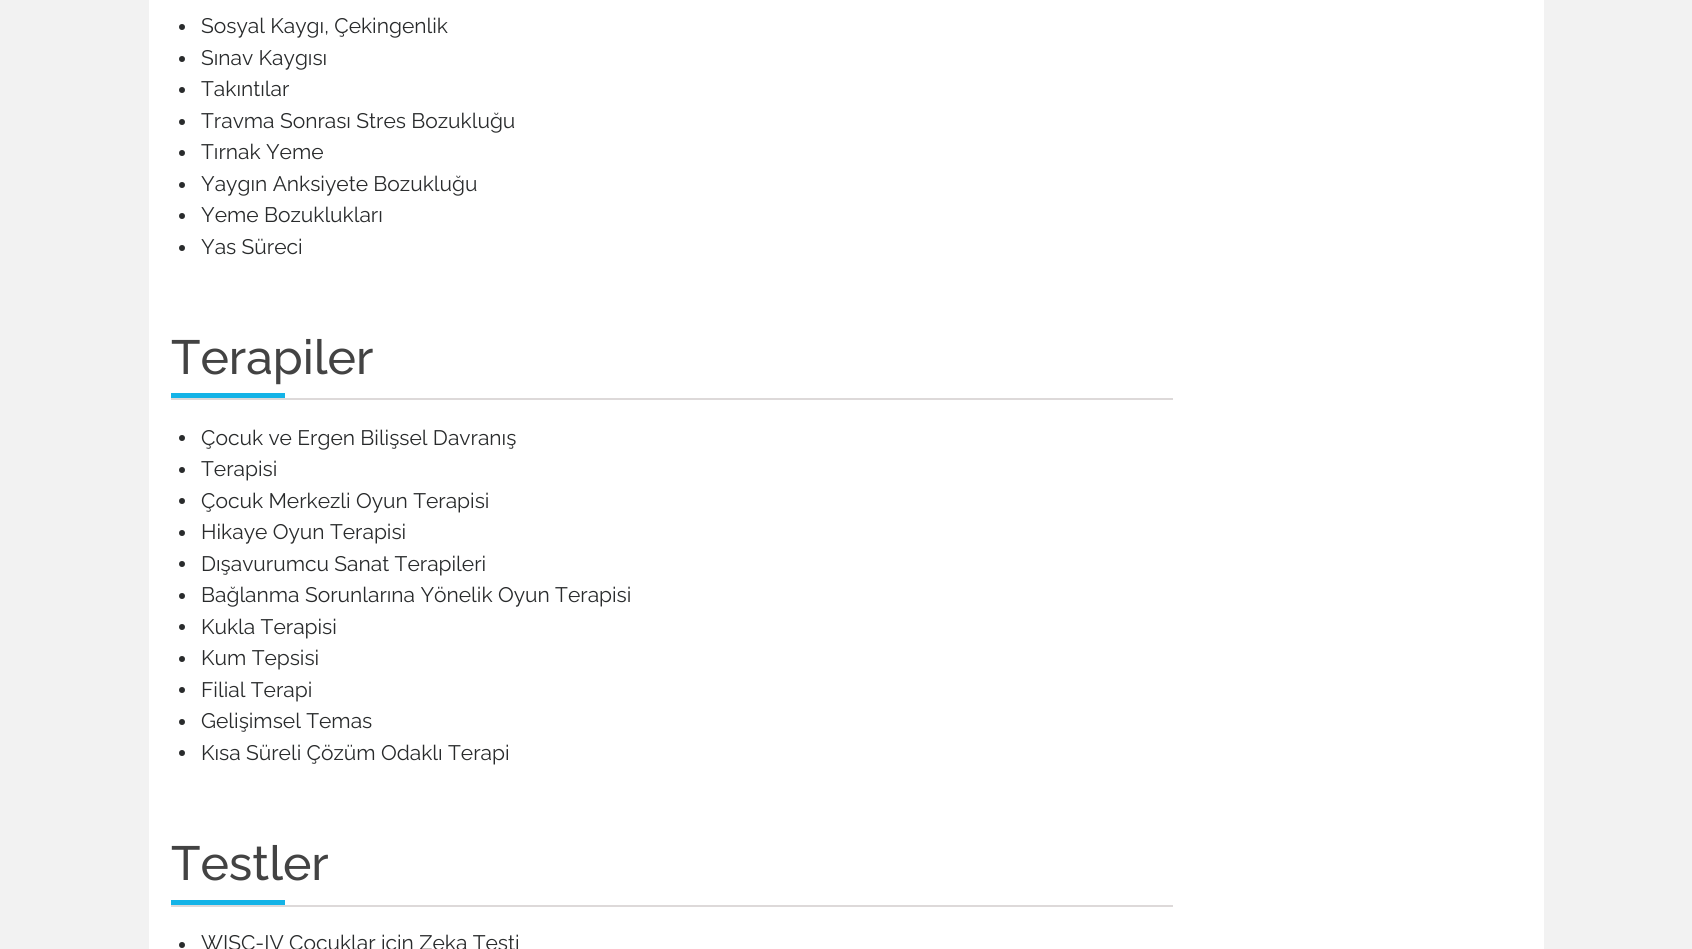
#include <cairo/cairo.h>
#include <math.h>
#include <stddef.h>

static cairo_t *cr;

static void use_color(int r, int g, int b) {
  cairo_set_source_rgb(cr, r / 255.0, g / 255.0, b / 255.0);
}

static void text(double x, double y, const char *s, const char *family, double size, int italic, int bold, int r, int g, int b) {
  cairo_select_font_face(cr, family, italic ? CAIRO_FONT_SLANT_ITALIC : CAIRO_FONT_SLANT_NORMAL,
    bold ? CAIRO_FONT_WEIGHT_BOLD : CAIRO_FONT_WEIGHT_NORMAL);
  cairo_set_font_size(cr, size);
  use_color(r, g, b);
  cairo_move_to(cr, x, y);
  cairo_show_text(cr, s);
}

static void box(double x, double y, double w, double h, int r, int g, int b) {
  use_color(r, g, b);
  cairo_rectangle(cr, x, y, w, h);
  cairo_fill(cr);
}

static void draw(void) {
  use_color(242, 242, 242);
  cairo_paint(cr);
  box(149, 0, 1395, 949, 255, 255, 255);
  use_color(41, 43, 44);
  cairo_arc(cr, 182, 27, 3, 0, 2 * M_PI);
  cairo_fill(cr);
  cairo_arc(cr, 182, 59, 3, 0, 2 * M_PI);
  cairo_fill(cr);
  cairo_arc(cr, 182, 90, 3, 0, 2 * M_PI);
  cairo_fill(cr);
  cairo_arc(cr, 182, 122, 3, 0, 2 * M_PI);
  cairo_fill(cr);
  cairo_arc(cr, 182, 153, 3, 0, 2 * M_PI);
  cairo_fill(cr);
  cairo_arc(cr, 182, 185, 3, 0, 2 * M_PI);
  cairo_fill(cr);
  cairo_arc(cr, 182, 216, 3, 0, 2 * M_PI);
  cairo_fill(cr);
  cairo_arc(cr, 182, 248, 3, 0, 2 * M_PI);
  cairo_fill(cr);
  box(171, 398, 1002, 2, 221, 217, 217);
  box(171, 393, 114, 5, 20, 179, 231);
  use_color(41, 43, 44);
  cairo_arc(cr, 182, 438, 3, 0, 2 * M_PI);
  cairo_fill(cr);
  cairo_arc(cr, 182, 470, 3, 0, 2 * M_PI);
  cairo_fill(cr);
  cairo_arc(cr, 182, 501, 3, 0, 2 * M_PI);
  cairo_fill(cr);
  cairo_arc(cr, 182, 533, 3, 0, 2 * M_PI);
  cairo_fill(cr);
  cairo_arc(cr, 182, 564, 3, 0, 2 * M_PI);
  cairo_fill(cr);
  cairo_arc(cr, 182, 596, 3, 0, 2 * M_PI);
  cairo_fill(cr);
  cairo_arc(cr, 182, 627, 3, 0, 2 * M_PI);
  cairo_fill(cr);
  cairo_arc(cr, 182, 659, 3, 0, 2 * M_PI);
  cairo_fill(cr);
  cairo_arc(cr, 182, 690, 3, 0, 2 * M_PI);
  cairo_fill(cr);
  cairo_arc(cr, 182, 722, 3, 0, 2 * M_PI);
  cairo_fill(cr);
  cairo_arc(cr, 182, 753, 3, 0, 2 * M_PI);
  cairo_fill(cr);
  box(171, 905, 1002, 2, 221, 217, 217);
  box(171, 900, 114, 5, 20, 179, 231);
  use_color(41, 43, 44);
  cairo_arc(cr, 182, 945, 3, 0, 2 * M_PI);
  cairo_fill(cr);
  text(201, 33, "Sosyal Kaygı, Çekingenlik", "Raleway", 21, 0, 0, 41, 43, 44);
  text(201, 65, "Sınav Kaygısı", "Raleway", 21, 0, 0, 41, 43, 44);
  text(201, 96, "Takıntılar", "Raleway", 21, 0, 0, 41, 43, 44);
  text(201, 128, "Travma Sonrası Stres Bozukluğu", "Raleway", 21, 0, 0, 41, 43, 44);
  text(201, 159, "Tırnak Yeme", "Raleway", 21, 0, 0, 41, 43, 44);
  text(201, 191, "Yaygın Anksiyete Bozukluğu", "Raleway", 21, 0, 0, 41, 43, 44);
  text(201, 222, "Yeme Bozuklukları", "Raleway", 21, 0, 0, 41, 43, 44);
  text(201, 254, "Yas Süreci", "Raleway", 21, 0, 0, 41, 43, 44);
  text(171, 374, "Terapiler", "Raleway Medium", 48, 0, 0, 67, 67, 67);
  text(201, 445, "Çocuk ve Ergen Bilişsel Davranış", "Raleway", 21, 0, 0, 41, 43, 44);
  text(201, 476, "Terapisi", "Raleway", 21, 0, 0, 41, 43, 44);
  text(201, 508, "Çocuk Merkezli Oyun Terapisi", "Raleway", 21, 0, 0, 41, 43, 44);
  text(201, 539, "Hikaye Oyun Terapisi", "Raleway", 21, 0, 0, 41, 43, 44);
  text(201, 571, "Dışavurumcu Sanat Terapileri", "Raleway", 21, 0, 0, 41, 43, 44);
  text(201, 602, "Bağlanma Sorunlarına Yönelik Oyun Terapisi", "Raleway", 21, 0, 0, 41, 43, 44);
  text(201, 634, "Kukla Terapisi", "Raleway", 21, 0, 0, 41, 43, 44);
  text(201, 665, "Kum Tepsisi", "Raleway", 21, 0, 0, 41, 43, 44);
  text(201, 697, "Filial Terapi", "Raleway", 21, 0, 0, 41, 43, 44);
  text(201, 728, "Gelişimsel Temas", "Raleway", 21, 0, 0, 41, 43, 44);
  text(201, 760, "Kısa Süreli Çözüm Odaklı Terapi", "Raleway", 21, 0, 0, 41, 43, 44);
  text(171, 880, "Testler", "Raleway Medium", 48, 0, 0, 67, 67, 67);
  text(201, 950, "WISC-IV Çocuklar için Zeka Testi", "Raleway", 21, 0, 0, 41, 43, 44);
}

int main(void) {
  cairo_surface_t *surface = cairo_image_surface_create(CAIRO_FORMAT_RGB24, 1692, 949);
  cr = cairo_create(surface);
  cairo_font_options_t *options = cairo_font_options_create();
  cairo_font_options_set_hint_metrics(options, CAIRO_HINT_METRICS_OFF);
  cairo_font_options_set_hint_style(options, CAIRO_HINT_STYLE_NONE);
  cairo_set_font_options(cr, options);
  cairo_set_miter_limit(cr, 4);
  draw();
  cairo_surface_write_to_png(surface, "out.png");
  cairo_font_options_destroy(options);
  cairo_destroy(cr);
  cairo_surface_destroy(surface);
  return 0;
}
